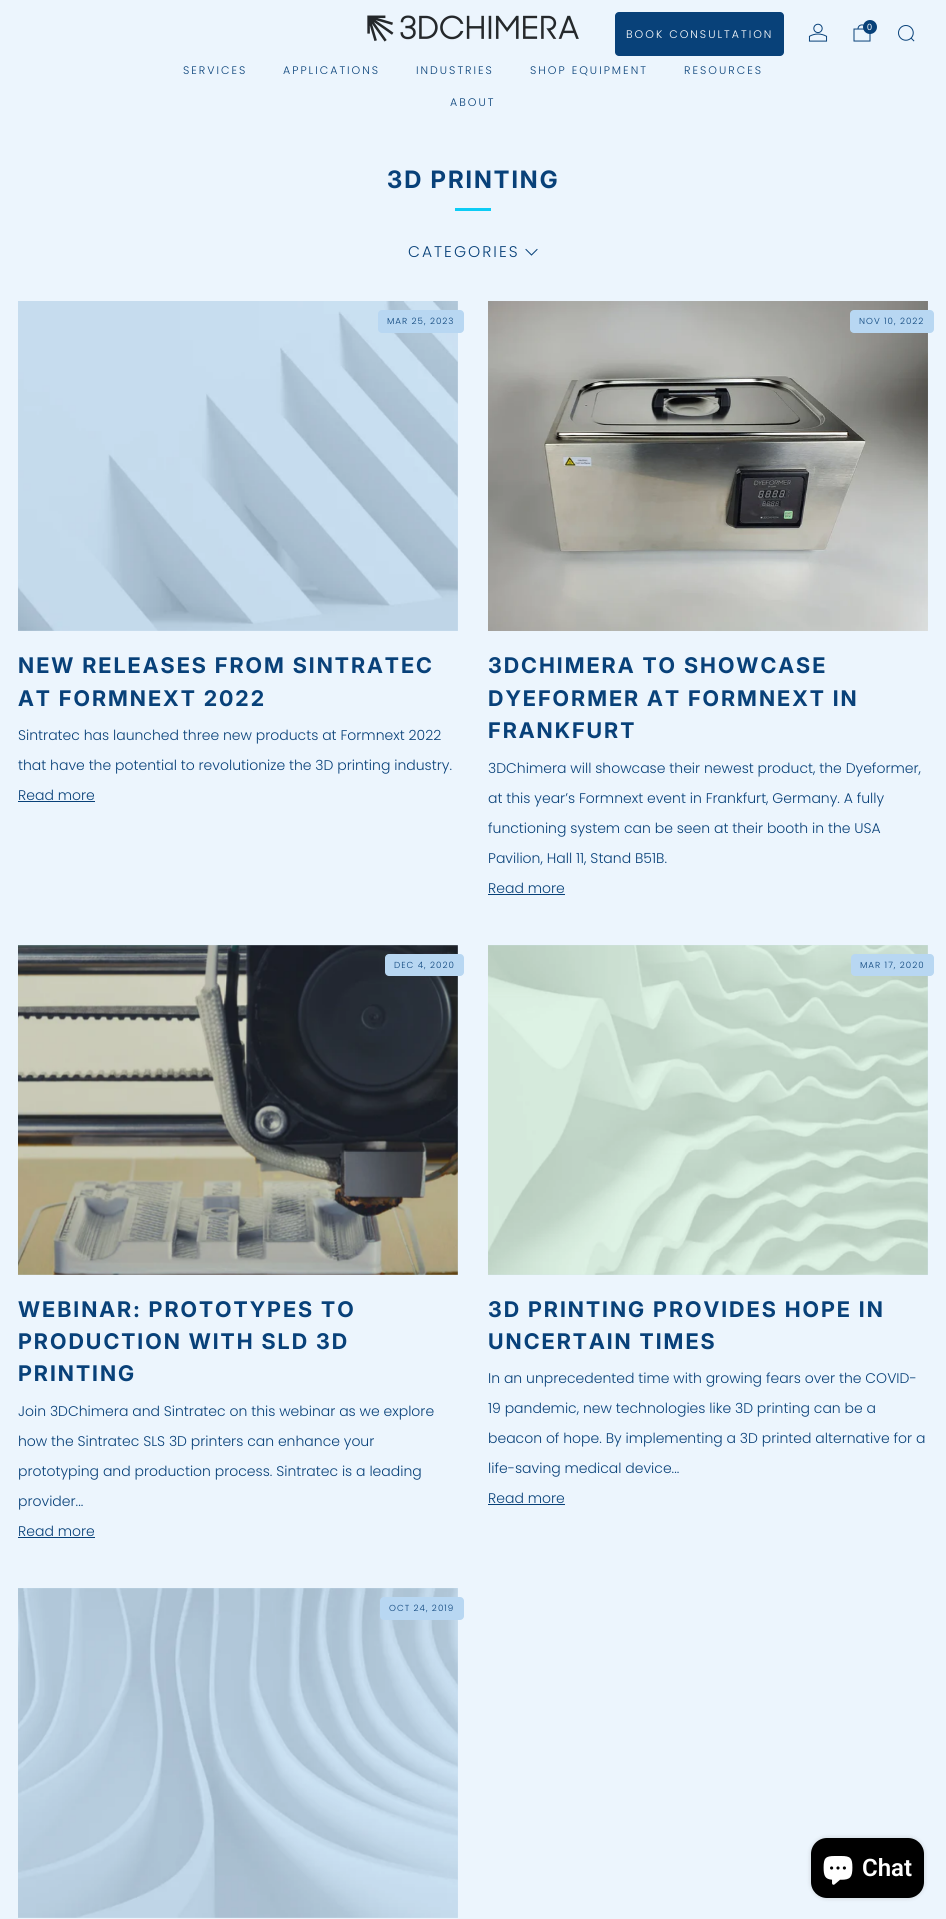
#include <cairo/cairo.h>
#include <math.h>
#include <stddef.h>

static cairo_t *cr;

static void use_color(int r, int g, int b) {
  cairo_set_source_rgb(cr, r / 255.0, g / 255.0, b / 255.0);
}

static void text(double x, double y, const char *s, const char *family, double size, int italic, int bold, int r, int g, int b) {
  cairo_select_font_face(cr, family, italic ? CAIRO_FONT_SLANT_ITALIC : CAIRO_FONT_SLANT_NORMAL,
    bold ? CAIRO_FONT_WEIGHT_BOLD : CAIRO_FONT_WEIGHT_NORMAL);
  cairo_set_font_size(cr, size);
  use_color(r, g, b);
  cairo_move_to(cr, x, y);
  cairo_show_text(cr, s);
}

static void spaced_text(double x, double y, const char *s, double letter, double word) {
  cairo_move_to(cr, x, y);
  while (*s) {
    char ch[5] = {0};
    int n = 0;
    do ch[n++] = *s++; while ((*s & 0xC0) == 0x80);
    cairo_show_text(cr, ch);
    cairo_rel_move_to(cr, letter + word * (*ch == ' '), 0);
  }
}

static void box(double x, double y, double w, double h, int r, int g, int b) {
  use_color(r, g, b);
  cairo_rectangle(cr, x, y, w, h);
  cairo_fill(cr);
}

static void round_rect(double x, double y, double w, double h, double r) {
  cairo_new_sub_path(cr);
  cairo_arc(cr, x + w - r, y + h - r, r, 0, M_PI / 2);
  cairo_arc(cr, x + r, y + h - r, r, M_PI / 2, M_PI);
  cairo_arc(cr, x + r, y + r, r, M_PI, 1.5 * M_PI);
  cairo_arc(cr, x + w - r, y + r, r, 1.5 * M_PI, 2 * M_PI);
  cairo_close_path(cr);
}

static void shadow(double x, double y, double w, double h, double r, double blur, double alpha) {
  cairo_push_group_with_content(cr, CAIRO_CONTENT_ALPHA);
  cairo_set_operator(cr, CAIRO_OPERATOR_SOURCE);
  for (int i = 15; i >= -15 && fmin(w, h) + blur * i / 3 > 0; i -= 2) {
    double e = blur * i / 6;
    cairo_set_source_rgba(cr, 0, 0, 0, alpha * erfc((i - 1) / 8.5) / 2);
    round_rect(x - e, y - e, w + 2 * e, h + 2 * e, fmax(0, fmin(r + e + blur * .6, fmin(w, h) / 2 + e)));
    cairo_fill(cr);
  }
  cairo_pattern_t *soft = cairo_pop_group(cr);
  cairo_mask(cr, soft);
  cairo_pattern_destroy(soft);
}

static void picture(const char *path, double x, double y, double w, double h) {
  cairo_surface_t *image = cairo_image_surface_create_from_png(path);
  cairo_save(cr);
  cairo_set_source_surface(cr, image, x, y);
  cairo_rectangle(cr, x, y, w, h);
  cairo_fill(cr);
  cairo_restore(cr);
  cairo_surface_destroy(image);
}

static void draw(void) {
  use_color(236, 245, 253);
  cairo_paint(cr);
  picture("img_01.png", 367, 15, 212, 27);
  use_color(8, 65, 121);
  round_rect(615, 12, 169, 44, 4);
  cairo_fill(cr);
  picture("img_02.png", 808, 23, 20, 19);
  cairo_new_path(cr);
  cairo_move_to(cr, 866, 29);
  cairo_curve_to(cr, 866, 23.5, 858, 23.5, 858, 29);
  cairo_move_to(cr, 854, 29);
  cairo_line_to(cr, 870, 29);
  cairo_line_to(cr, 870, 41);
  cairo_line_to(cr, 854, 41);
  cairo_close_path(cr);
  cairo_set_line_width(cr, 1);
  cairo_stroke(cr);
  cairo_arc(cr, 870, 27, 7, 0, 2 * M_PI);
  cairo_fill(cr);
  picture("img_03.png", 898, 25, 17, 17);
  box(455, 208, 36, 3, 12, 204, 245);
  cairo_new_path(cr);
  cairo_move_to(cr, 537, 249.5);
  cairo_line_to(cr, 531.5, 255);
  cairo_line_to(cr, 526, 249.5);
  use_color(8, 65, 121);
  cairo_set_line_cap(cr, CAIRO_LINE_CAP_SQUARE);
  cairo_stroke(cr);
  box(18, 301, 440, 330, 213, 233, 251);
  picture("img_04.png", 18, 301, 440, 330);
  use_color(184, 215, 242);
  round_rect(378, 310, 86, 23, 4);
  cairo_fill(cr);
  box(18, 801, 77, 1, 8, 65, 121);
  picture("img_05.png", 488, 301, 440, 330);
  use_color(184, 215, 242);
  round_rect(850, 310, 84, 23, 4);
  cairo_fill(cr);
  box(488, 894, 77, 1, 8, 65, 121);
  box(18, 945, 440, 330, 213, 233, 251);
  picture("img_06.png", 18, 945, 440, 330);
  use_color(184, 215, 242);
  round_rect(385, 954, 79, 22, 4);
  cairo_fill(cr);
  box(18, 1537, 77, 1, 8, 65, 121);
  box(488, 945, 440, 330, 213, 233, 251);
  picture("img_07.png", 488, 945, 440, 330);
  use_color(184, 215, 242);
  round_rect(851, 954, 83, 22, 4);
  cairo_fill(cr);
  box(488, 1504, 77, 1, 8, 65, 121);
  box(18, 1588, 440, 330, 213, 233, 251);
  picture("img_08.png", 18, 1588, 440, 330);
  use_color(184, 215, 242);
  round_rect(380, 1597, 84, 23, 4);
  cairo_fill(cr);
  use_color(0, 0, 0);
  shadow(811, 1838, 113, 60, 16, 2.5, 0.15);
  use_color(0, 0, 0);
  round_rect(811, 1838, 113, 60, 16);
  cairo_fill(cr);
  picture("img_09.png", 823, 1856, 30, 29);
  cairo_select_font_face(cr, "Poppins Light", CAIRO_FONT_SLANT_NORMAL, CAIRO_FONT_WEIGHT_NORMAL);
  cairo_set_font_size(cr, 11);
  use_color(255, 255, 255);
  spaced_text(626, 38, "BOOK CONSULTATION", 2, 0);
  text(867, 30, "0", "Liberation Sans", 9, 0, 0, 255, 255, 255);
  cairo_select_font_face(cr, "Poppins Light", CAIRO_FONT_SLANT_NORMAL, CAIRO_FONT_WEIGHT_NORMAL);
  cairo_set_font_size(cr, 11);
  use_color(8, 65, 121);
  spaced_text(183, 74, "SERVICES", 2, 0);
  spaced_text(283, 74, "APPLICATIONS", 2, 0);
  spaced_text(416, 74, "INDUSTRIES", 2, 0);
  spaced_text(530, 74, "SHOP EQUIPMENT", 2, 0);
  spaced_text(684, 74, "RESOURCES", 2, 0);
  spaced_text(450, 106, "ABOUT", 2, 0);
  cairo_select_font_face(cr, "Inter", CAIRO_FONT_SLANT_NORMAL, CAIRO_FONT_WEIGHT_BOLD);
  cairo_set_font_size(cr, 24);
  spaced_text(387, 188, "3D PRINTING", 2, 0);
  cairo_select_font_face(cr, "Poppins Light", CAIRO_FONT_SLANT_NORMAL, CAIRO_FONT_WEIGHT_NORMAL);
  cairo_set_font_size(cr, 15.5);
  spaced_text(408, 257, "CATEGORIES", 2, 0);
  cairo_set_font_size(cr, 8.75);
  spaced_text(387, 324, "MAR 25, 2023", 1, 0);
  cairo_select_font_face(cr, "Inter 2", CAIRO_FONT_SLANT_NORMAL, CAIRO_FONT_WEIGHT_BOLD);
  cairo_set_font_size(cr, 21.6);
  spaced_text(18, 673, "NEW RELEASES FROM SINTRATEC", 2, 0);
  spaced_text(18, 706, "AT FORMNEXT 2022", 2, 0);
  text(18, 740, "Sintratec has launched three new products at Formnext 2022", "Poppins Light", 14, 0, 0, 8, 65, 121);
  text(18, 770, "that have the potential to revolutionize the 3D printing industry.", "Poppins Light", 14, 0, 0, 8, 65, 121);
  text(18, 800, "Read more", "Poppins Light", 14, 0, 0, 8, 65, 121);
  cairo_set_font_size(cr, 8.75);
  spaced_text(859, 324, "NOV 10, 2022", 1, 0);
  cairo_select_font_face(cr, "Inter 2", CAIRO_FONT_SLANT_NORMAL, CAIRO_FONT_WEIGHT_BOLD);
  cairo_set_font_size(cr, 21.6);
  spaced_text(488, 673, "3DCHIMERA TO SHOWCASE", 2, 0);
  spaced_text(488, 706, "DYEFORMER AT FORMNEXT IN", 2, 0);
  spaced_text(488, 738, "FRANKFURT", 2, 0);
  text(488, 773, "3DChimera will showcase their newest product, the Dyeformer,", "Poppins Light", 14, 0, 0, 8, 65, 121);
  text(488, 803, "at this year’s Formnext event in Frankfurt, Germany. A fully", "Poppins Light", 14, 0, 0, 8, 65, 121);
  text(488, 833, "functioning system can be seen at their booth in the USA", "Poppins Light", 14, 0, 0, 8, 65, 121);
  text(488, 863, "Pavilion, Hall 11, Stand B51B.", "Poppins Light", 14, 0, 0, 8, 65, 121);
  text(488, 893, "Read more", "Poppins Light", 14, 0, 0, 8, 65, 121);
  cairo_set_font_size(cr, 8.75);
  spaced_text(394, 968, "DEC 4, 2020", 1, 0);
  cairo_select_font_face(cr, "Inter 2", CAIRO_FONT_SLANT_NORMAL, CAIRO_FONT_WEIGHT_BOLD);
  cairo_set_font_size(cr, 21.6);
  spaced_text(18, 1317, "WEBINAR: PROTOTYPES TO", 2, 0);
  spaced_text(18, 1349, "PRODUCTION WITH SLD 3D", 2, 0);
  spaced_text(18, 1381, "PRINTING", 2, 0);
  text(18, 1416, "Join 3DChimera and Sintratec on this webinar as we explore", "Poppins Light", 14, 0, 0, 8, 65, 121);
  text(18, 1446, "how the Sintratec SLS 3D printers can enhance your", "Poppins Light", 14, 0, 0, 8, 65, 121);
  text(18, 1476, "prototyping and production process. Sintratec is a leading", "Poppins Light", 14, 0, 0, 8, 65, 121);
  text(18, 1506, "provider...", "Poppins Light", 14, 0, 0, 8, 65, 121);
  text(18, 1536, "Read more", "Poppins Light", 14, 0, 0, 8, 65, 121);
  cairo_set_font_size(cr, 8.75);
  spaced_text(860, 968, "MAR 17, 2020", 1, 0);
  cairo_select_font_face(cr, "Inter 2", CAIRO_FONT_SLANT_NORMAL, CAIRO_FONT_WEIGHT_BOLD);
  cairo_set_font_size(cr, 21.6);
  spaced_text(488, 1317, "3D PRINTING PROVIDES HOPE IN", 2, 0);
  spaced_text(488, 1349, "UNCERTAIN TIMES", 2, 0);
  text(488, 1383, "In an unprecedented time with growing fears over the COVID-", "Poppins Light", 14, 0, 0, 8, 65, 121);
  text(488, 1413, "19 pandemic, new technologies like 3D printing can be a", "Poppins Light", 14, 0, 0, 8, 65, 121);
  text(488, 1443, "beacon of hope. By implementing a 3D printed alternative for a", "Poppins Light", 14, 0, 0, 8, 65, 121);
  text(488, 1473, "life-saving medical device...", "Poppins Light", 14, 0, 0, 8, 65, 121);
  text(488, 1503, "Read more", "Poppins Light", 14, 0, 0, 8, 65, 121);
  cairo_set_font_size(cr, 8.75);
  spaced_text(389, 1611, "OCT 24, 2019", 1, 0);
  text(862, 1876, "Chat", "Roboto SemiBold", 24, 0, 0, 255, 255, 255);
}

int main(void) {
  cairo_surface_t *surface = cairo_image_surface_create(CAIRO_FORMAT_RGB24, 946, 1919);
  cr = cairo_create(surface);
  cairo_font_options_t *options = cairo_font_options_create();
  cairo_font_options_set_hint_metrics(options, CAIRO_HINT_METRICS_OFF);
  cairo_font_options_set_hint_style(options, CAIRO_HINT_STYLE_NONE);
  cairo_set_font_options(cr, options);
  cairo_set_miter_limit(cr, 4);
  draw();
  cairo_surface_write_to_png(surface, "out.png");
  cairo_font_options_destroy(options);
  cairo_destroy(cr);
  cairo_surface_destroy(surface);
  return 0;
}
